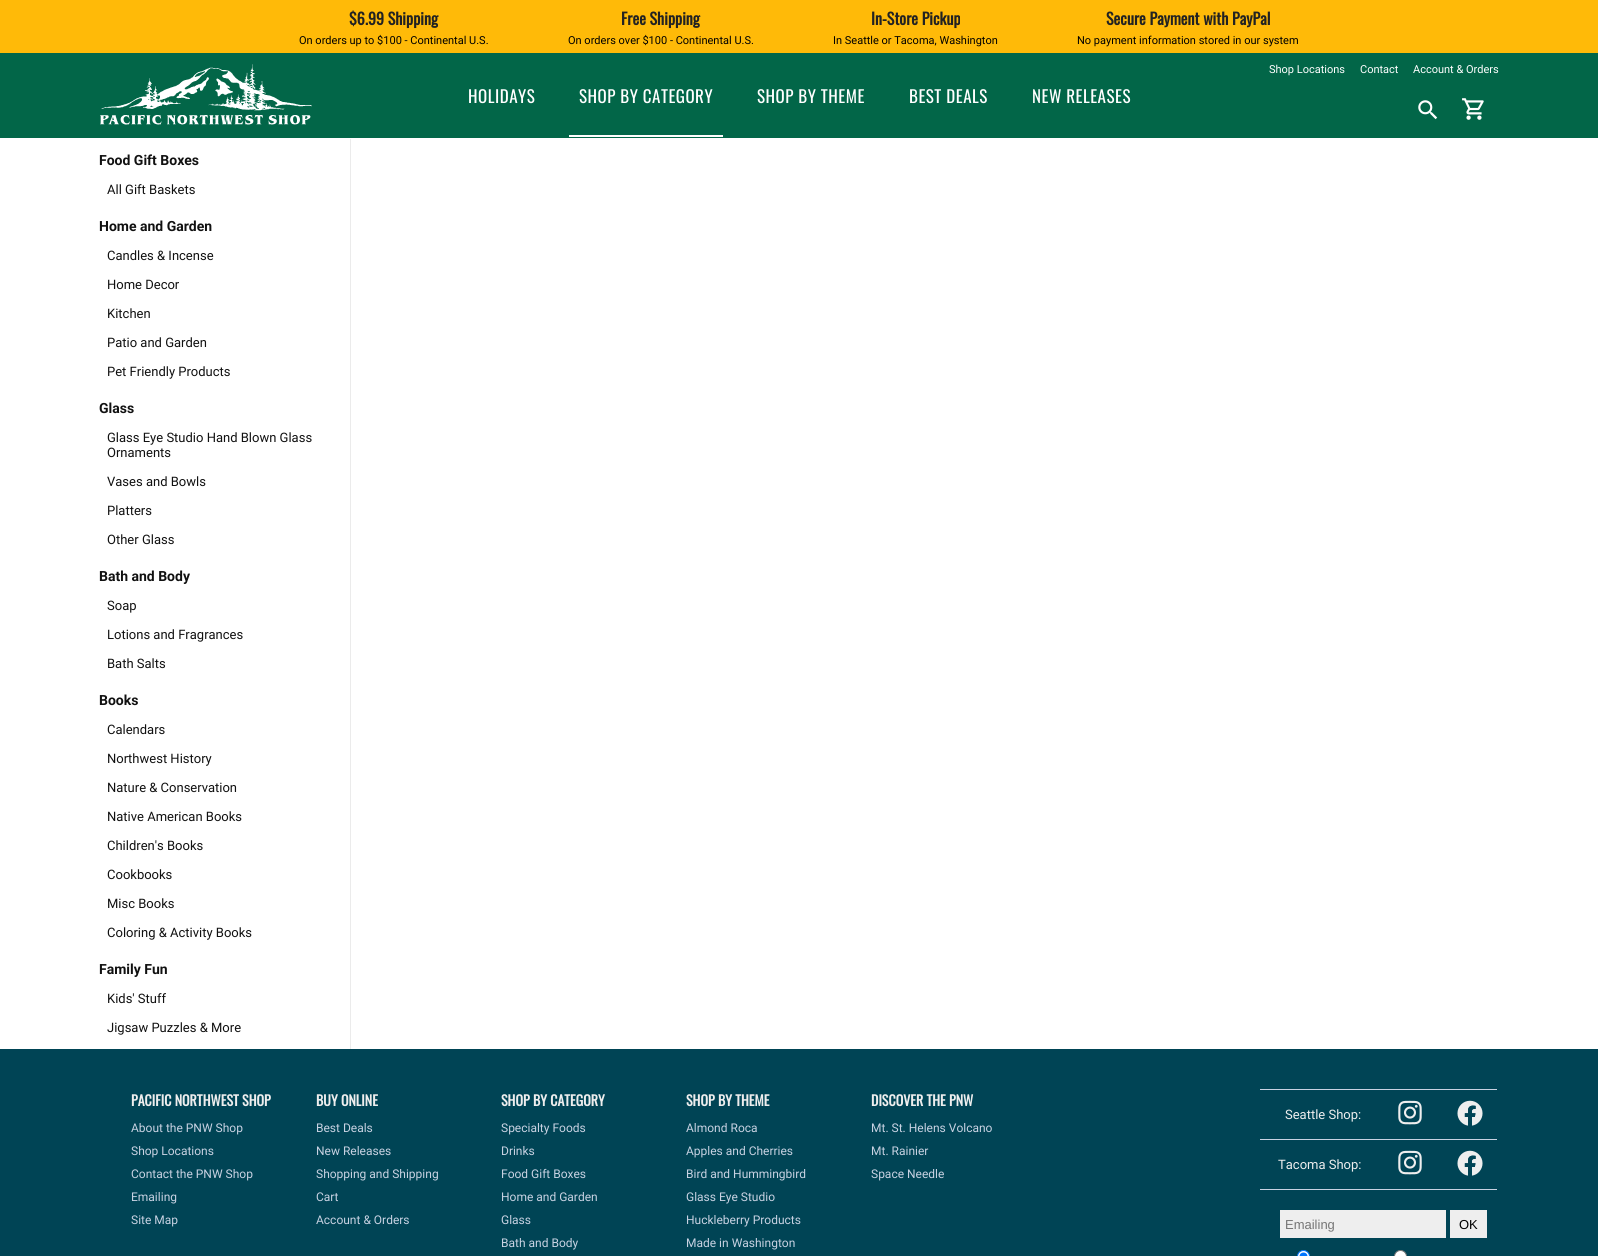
#include <cairo/cairo.h>
#include <math.h>
#include <stddef.h>

static cairo_t *cr;

static void use_color(int r, int g, int b) {
  cairo_set_source_rgb(cr, r / 255.0, g / 255.0, b / 255.0);
}

static void text(double x, double y, const char *s, const char *family, double size, int italic, int bold, int r, int g, int b) {
  cairo_select_font_face(cr, family, italic ? CAIRO_FONT_SLANT_ITALIC : CAIRO_FONT_SLANT_NORMAL,
    bold ? CAIRO_FONT_WEIGHT_BOLD : CAIRO_FONT_WEIGHT_NORMAL);
  cairo_set_font_size(cr, size);
  use_color(r, g, b);
  cairo_move_to(cr, x, y);
  cairo_show_text(cr, s);
}

static void spaced_text(double x, double y, const char *s, double letter, double word) {
  cairo_move_to(cr, x, y);
  while (*s) {
    char ch[5] = {0};
    int n = 0;
    do ch[n++] = *s++; while ((*s & 0xC0) == 0x80);
    cairo_show_text(cr, ch);
    cairo_rel_move_to(cr, letter + word * (*ch == ' '), 0);
  }
}

static void box(double x, double y, double w, double h, int r, int g, int b) {
  use_color(r, g, b);
  cairo_rectangle(cr, x, y, w, h);
  cairo_fill(cr);
}

static void picture(const char *path, double x, double y, double w, double h) {
  cairo_surface_t *image = cairo_image_surface_create_from_png(path);
  cairo_save(cr);
  cairo_set_source_surface(cr, image, x, y);
  cairo_rectangle(cr, x, y, w, h);
  cairo_fill(cr);
  cairo_restore(cr);
  cairo_surface_destroy(image);
}

static void draw(void) {
  use_color(255, 255, 255);
  cairo_paint(cr);
  box(0, 0, 1598, 53, 255, 186, 8);
  box(0, 53, 1598, 85, 2, 102, 72);
  picture("img_01.png", 100, 64, 212, 61);
  picture("img_02.png", 1418, 100, 20, 20);
  picture("img_03.png", 1462, 98, 22, 22);
  box(569, 135, 154, 2, 255, 255, 255);
  box(350, 139, 1, 910, 235, 235, 235);
  box(0, 1049, 1598, 207, 0, 68, 85);
  box(1260, 1089, 237, 1, 200, 210, 226);
  picture("img_04.png", 1398, 1100, 24, 25);
  picture("img_05.png", 1457, 1100, 26, 26);
  box(1260, 1139, 237, 1, 200, 210, 226);
  picture("img_04.png", 1398, 1150, 24, 25);
  picture("img_05.png", 1457, 1150, 26, 26);
  box(1260, 1189, 237, 1, 200, 210, 226);
  box(1280, 1210, 166, 28, 238, 238, 238);
  box(1450, 1210, 37, 28, 238, 238, 238);
  use_color(255, 255, 255);
  cairo_arc(cr, 1303.5, 1256.5, 6, 0, 2 * M_PI);
  cairo_fill_preserve(cr);
  use_color(0, 117, 255);
  cairo_set_line_width(cr, 1);
  cairo_stroke(cr);
  cairo_arc(cr, 1303.5, 1256.5, 4, 0, 2 * M_PI);
  cairo_fill(cr);
  use_color(255, 255, 255);
  cairo_arc(cr, 1400.5, 1256.5, 6, 0, 2 * M_PI);
  cairo_fill_preserve(cr);
  use_color(118, 118, 118);
  cairo_stroke(cr);
  text(349, 25, "$6.99 Shipping", "Oswald", 16, 0, 1, 34, 34, 34);
  text(299, 44, "On orders up to $100 - Continental U.S.", "Roboto", 11, 0, 0, 0, 0, 0);
  text(621, 25, "Free Shipping", "Oswald", 16, 0, 1, 34, 34, 34);
  text(568, 44, "On orders over $100 - Continental U.S.", "Roboto", 11, 0, 0, 0, 0, 0);
  text(871, 25, "In-Store Pickup", "Oswald", 16, 0, 1, 34, 34, 34);
  text(833, 44, "In Seattle or Tacoma, Washington", "Roboto", 11, 0, 0, 0, 0, 0);
  text(1106, 25, "Secure Payment with PayPal", "Oswald", 16, 0, 1, 34, 34, 34);
  text(1077, 44, "No payment information stored in our system", "Roboto", 11, 0, 0, 0, 0, 0);
  text(1269, 73, "Shop Locations", "Roboto", 11, 0, 0, 255, 255, 255);
  text(1360, 73, "Contact", "Roboto", 11, 0, 0, 255, 255, 255);
  text(1413, 73, "Account & Orders", "Roboto", 11, 0, 0, 255, 255, 255);
  cairo_select_font_face(cr, "Oswald", CAIRO_FONT_SLANT_NORMAL, CAIRO_FONT_WEIGHT_NORMAL);
  cairo_set_font_size(cr, 17);
  spaced_text(468, 103, "HOLIDAYS", 0.5, 0);
  spaced_text(579, 103, "SHOP BY CATEGORY", 0.5, 0);
  spaced_text(757, 103, "SHOP BY THEME", 0.5, 0);
  spaced_text(909, 103, "BEST DEALS", 0.5, 0);
  spaced_text(1032, 103, "NEW RELEASES", 0.5, 0);
  text(99, 165, "Food Gift Boxes", "Roboto", 14, 0, 1, 17, 17, 17);
  text(107, 194, "All Gift Baskets", "Roboto", 13, 0, 0, 17, 17, 17);
  text(99, 231, "Home and Garden", "Roboto", 14, 0, 1, 17, 17, 17);
  text(107, 260, "Candles & Incense", "Roboto", 13, 0, 0, 17, 17, 17);
  text(107, 289, "Home Decor", "Roboto", 13, 0, 0, 17, 17, 17);
  text(107, 318, "Kitchen", "Roboto", 13, 0, 0, 17, 17, 17);
  text(107, 347, "Patio and Garden", "Roboto", 13, 0, 0, 17, 17, 17);
  text(107, 376, "Pet Friendly Products", "Roboto", 13, 0, 0, 17, 17, 17);
  text(99, 413, "Glass", "Roboto", 14, 0, 1, 17, 17, 17);
  text(107, 442, "Glass Eye Studio Hand Blown Glass", "Roboto", 13, 0, 0, 17, 17, 17);
  text(107, 457, "Ornaments", "Roboto", 13, 0, 0, 17, 17, 17);
  text(107, 486, "Vases and Bowls", "Roboto", 13, 0, 0, 17, 17, 17);
  text(107, 515, "Platters", "Roboto", 13, 0, 0, 17, 17, 17);
  text(107, 544, "Other Glass", "Roboto", 13, 0, 0, 17, 17, 17);
  text(99, 581, "Bath and Body", "Roboto", 14, 0, 1, 17, 17, 17);
  text(107, 610, "Soap", "Roboto", 13, 0, 0, 17, 17, 17);
  text(107, 639, "Lotions and Fragrances", "Roboto", 13, 0, 0, 17, 17, 17);
  text(107, 668, "Bath Salts", "Roboto", 13, 0, 0, 17, 17, 17);
  text(99, 705, "Books", "Roboto", 14, 0, 1, 17, 17, 17);
  text(107, 734, "Calendars", "Roboto", 13, 0, 0, 17, 17, 17);
  text(107, 763, "Northwest History", "Roboto", 13, 0, 0, 17, 17, 17);
  text(107, 792, "Nature & Conservation", "Roboto", 13, 0, 0, 17, 17, 17);
  text(107, 821, "Native American Books", "Roboto", 13, 0, 0, 17, 17, 17);
  text(107, 850, "Children's Books", "Roboto", 13, 0, 0, 17, 17, 17);
  text(107, 879, "Cookbooks", "Roboto", 13, 0, 0, 17, 17, 17);
  text(107, 908, "Misc Books", "Roboto", 13, 0, 0, 17, 17, 17);
  text(107, 937, "Coloring & Activity Books", "Roboto", 13, 0, 0, 17, 17, 17);
  text(99, 974, "Family Fun", "Roboto", 14, 0, 1, 17, 17, 17);
  text(107, 1003, "Kids' Stuff", "Roboto", 13, 0, 0, 17, 17, 17);
  text(107, 1032, "Jigsaw Puzzles & More", "Roboto", 13, 0, 0, 17, 17, 17);
  text(131, 1106, "PACIFIC NORTHWEST SHOP", "Oswald", 14, 0, 1, 238, 238, 238);
  text(131, 1132, "About the PNW Shop", "Roboto", 12, 0, 0, 200, 210, 226);
  text(131, 1155, "Shop Locations", "Roboto", 12, 0, 0, 200, 210, 226);
  text(131, 1178, "Contact the PNW Shop", "Roboto", 12, 0, 0, 200, 210, 226);
  text(131, 1201, "Emailing", "Roboto", 12, 0, 0, 200, 210, 226);
  text(131, 1224, "Site Map", "Roboto", 12, 0, 0, 200, 210, 226);
  text(316, 1106, "BUY ONLINE", "Oswald", 14, 0, 1, 238, 238, 238);
  text(316, 1132, "Best Deals", "Roboto", 12, 0, 0, 200, 210, 226);
  text(316, 1155, "New Releases", "Roboto", 12, 0, 0, 200, 210, 226);
  text(316, 1178, "Shopping and Shipping", "Roboto", 12, 0, 0, 200, 210, 226);
  text(316, 1201, "Cart", "Roboto", 12, 0, 0, 200, 210, 226);
  text(316, 1224, "Account & Orders", "Roboto", 12, 0, 0, 200, 210, 226);
  text(501, 1106, "SHOP BY CATEGORY", "Oswald", 14, 0, 1, 238, 238, 238);
  text(501, 1132, "Specialty Foods", "Roboto", 12, 0, 0, 200, 210, 226);
  text(501, 1155, "Drinks", "Roboto", 12, 0, 0, 200, 210, 226);
  text(501, 1178, "Food Gift Boxes", "Roboto", 12, 0, 0, 200, 210, 226);
  text(501, 1201, "Home and Garden", "Roboto", 12, 0, 0, 200, 210, 226);
  text(501, 1224, "Glass", "Roboto", 12, 0, 0, 200, 210, 226);
  text(501, 1247, "Bath and Body", "Roboto", 12, 0, 0, 200, 210, 226);
  text(686, 1106, "SHOP BY THEME", "Oswald", 14, 0, 1, 238, 238, 238);
  text(686, 1132, "Almond Roca", "Roboto", 12, 0, 0, 200, 210, 226);
  text(686, 1155, "Apples and Cherries", "Roboto", 12, 0, 0, 200, 210, 226);
  text(686, 1178, "Bird and Hummingbird", "Roboto", 12, 0, 0, 200, 210, 226);
  text(686, 1201, "Glass Eye Studio", "Roboto", 12, 0, 0, 200, 210, 226);
  text(686, 1224, "Huckleberry Products", "Roboto", 12, 0, 0, 200, 210, 226);
  text(686, 1247, "Made in Washington", "Roboto", 12, 0, 0, 200, 210, 226);
  text(871, 1106, "DISCOVER THE PNW", "Oswald", 14, 0, 1, 238, 238, 238);
  text(871, 1132, "Mt. St. Helens Volcano", "Roboto", 12, 0, 0, 200, 210, 226);
  text(871, 1155, "Mt. Rainier", "Roboto", 12, 0, 0, 200, 210, 226);
  text(871, 1178, "Space Needle", "Roboto", 12, 0, 0, 200, 210, 226);
  text(1285, 1119, "Seattle Shop:", "Roboto", 13, 0, 0, 238, 238, 238);
  text(1278, 1169, "Tacoma Shop:", "Roboto", 13, 0, 0, 238, 238, 238);
  text(1285, 1229, "Emailing", "Liberation Sans", 13, 0, 0, 117, 117, 117);
  text(1459, 1229, "OK", "Liberation Sans", 13, 0, 0, 0, 0, 0);
}

int main(void) {
  cairo_surface_t *surface = cairo_image_surface_create(CAIRO_FORMAT_RGB24, 1598, 1256);
  cr = cairo_create(surface);
  cairo_font_options_t *options = cairo_font_options_create();
  cairo_font_options_set_hint_metrics(options, CAIRO_HINT_METRICS_OFF);
  cairo_font_options_set_hint_style(options, CAIRO_HINT_STYLE_NONE);
  cairo_set_font_options(cr, options);
  cairo_set_miter_limit(cr, 4);
  draw();
  cairo_surface_write_to_png(surface, "out.png");
  cairo_font_options_destroy(options);
  cairo_destroy(cr);
  cairo_surface_destroy(surface);
  return 0;
}
